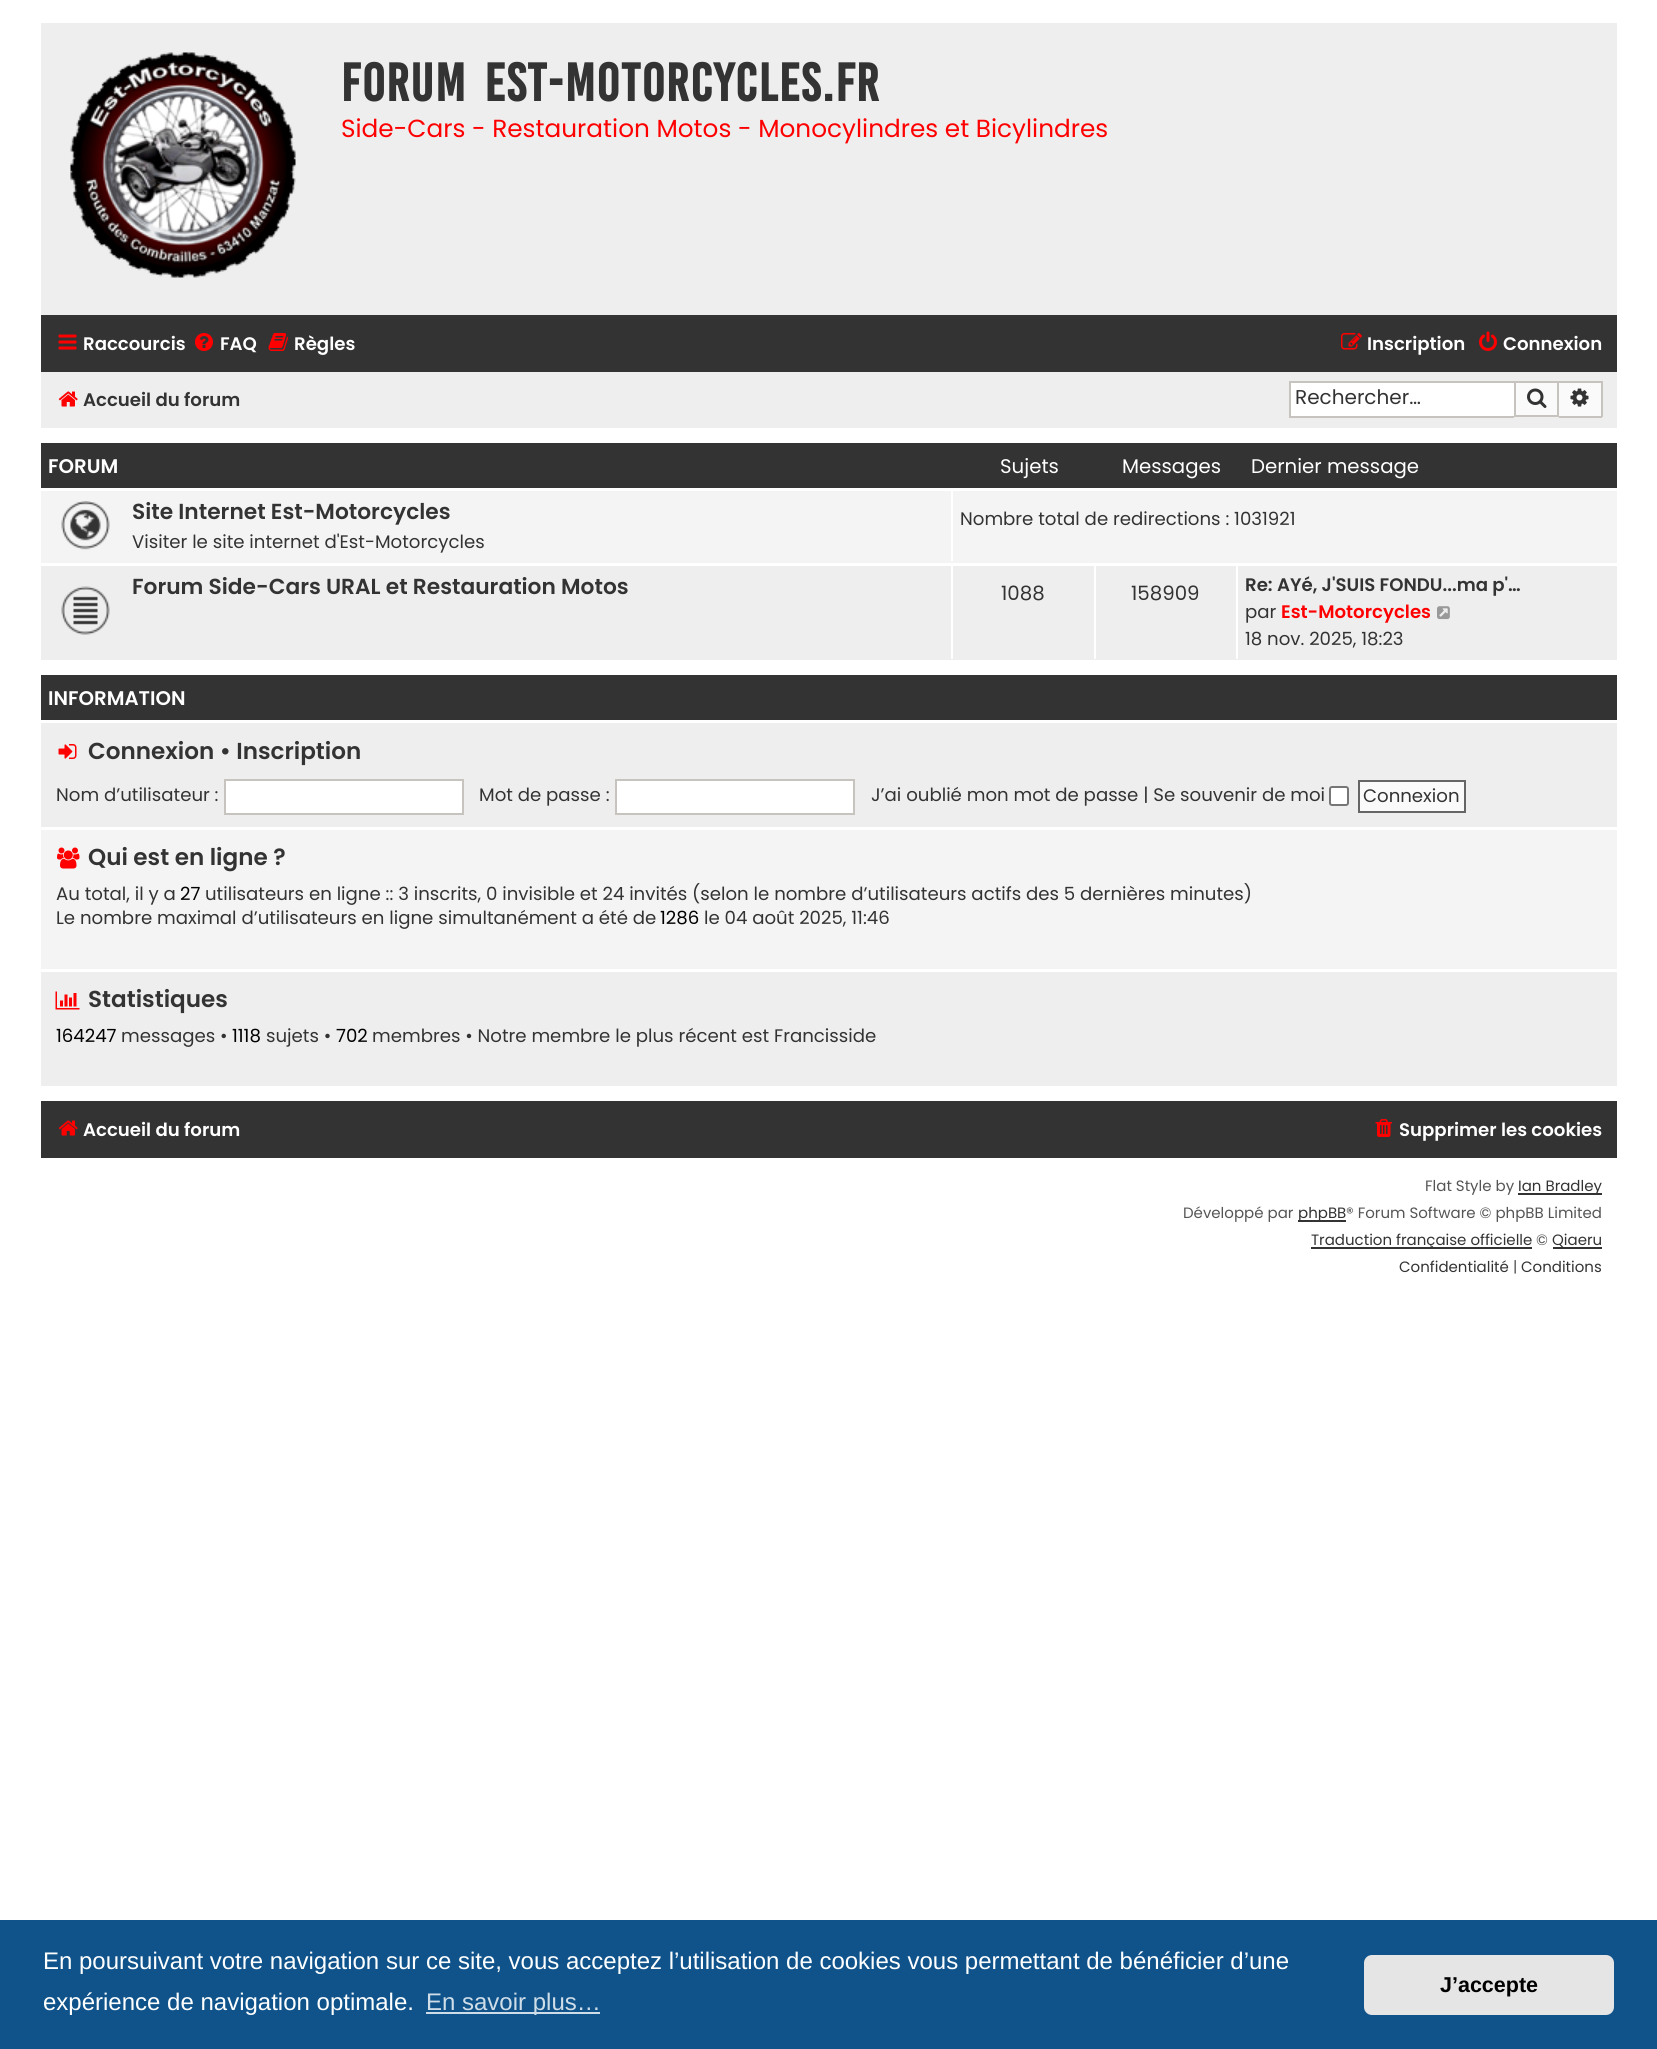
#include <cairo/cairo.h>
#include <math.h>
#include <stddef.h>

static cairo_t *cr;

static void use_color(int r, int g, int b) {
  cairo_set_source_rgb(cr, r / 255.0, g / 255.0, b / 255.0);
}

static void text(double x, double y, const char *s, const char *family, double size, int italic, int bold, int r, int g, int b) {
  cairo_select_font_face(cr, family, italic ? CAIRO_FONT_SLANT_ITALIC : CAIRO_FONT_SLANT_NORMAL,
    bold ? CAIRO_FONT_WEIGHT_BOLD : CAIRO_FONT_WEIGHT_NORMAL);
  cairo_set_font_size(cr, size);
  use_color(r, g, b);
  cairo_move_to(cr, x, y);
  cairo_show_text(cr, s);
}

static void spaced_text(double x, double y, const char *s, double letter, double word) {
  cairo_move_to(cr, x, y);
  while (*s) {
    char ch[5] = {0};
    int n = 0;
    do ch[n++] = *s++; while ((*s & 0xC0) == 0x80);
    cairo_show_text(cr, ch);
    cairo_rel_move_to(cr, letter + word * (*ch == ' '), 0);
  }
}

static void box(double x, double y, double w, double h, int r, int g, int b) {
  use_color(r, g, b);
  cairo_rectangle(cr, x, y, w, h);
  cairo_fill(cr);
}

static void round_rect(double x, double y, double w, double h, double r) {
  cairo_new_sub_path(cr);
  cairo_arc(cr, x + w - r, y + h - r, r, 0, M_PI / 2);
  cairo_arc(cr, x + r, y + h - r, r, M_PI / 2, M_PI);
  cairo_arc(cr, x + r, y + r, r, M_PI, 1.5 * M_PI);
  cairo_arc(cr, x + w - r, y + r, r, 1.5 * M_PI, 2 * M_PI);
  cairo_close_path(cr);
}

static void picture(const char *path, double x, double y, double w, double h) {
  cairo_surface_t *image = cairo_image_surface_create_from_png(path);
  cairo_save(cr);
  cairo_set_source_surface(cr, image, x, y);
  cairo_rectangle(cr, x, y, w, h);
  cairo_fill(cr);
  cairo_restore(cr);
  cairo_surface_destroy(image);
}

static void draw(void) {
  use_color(255, 255, 255);
  cairo_paint(cr);
  box(41, 23, 1576, 292, 238, 238, 238);
  picture("img_01.png", 70, 52, 226, 226);
  box(41, 315, 1576, 57, 51, 51, 51);
  picture("img_02.png", 58, 334, 19, 16);
  picture("img_03.png", 195, 333, 18, 18);
  picture("img_04.png", 268, 333, 20, 18);
  picture("img_05.png", 1341, 333, 21, 17);
  picture("img_06.png", 1479, 331, 18, 20);
  box(41, 372, 1576, 56, 238, 238, 238);
  picture("img_07.png", 58, 391, 20, 16);
  box(1291, 383, 223, 33, 255, 255, 255);
  box(1289, 381, 225, 2, 199, 195, 191);
  box(1289, 416, 225, 2, 199, 195, 191);
  box(1289, 381, 2, 36, 199, 195, 191);
  use_color(250, 250, 250);
  cairo_rectangle(cr, 1515, 382, 43, 34);
  cairo_fill_preserve(cr);
  use_color(199, 195, 191);
  cairo_stroke(cr);
  picture("img_08.png", 1527, 388, 20, 20);
  box(1559, 383, 42, 33, 250, 250, 250);
  box(1559, 381, 43, 2, 199, 195, 191);
  box(1601, 381, 2, 36, 199, 195, 191);
  box(1559, 416, 43, 2, 199, 195, 191);
  picture("img_09.png", 1570, 388, 19, 19);
  box(41, 443, 1576, 45, 51, 51, 51);
  box(41, 566, 1576, 94, 238, 238, 238);
  box(41, 491, 1576, 72, 244, 244, 244);
  picture("img_10.png", 61, 501, 49, 49);
  box(951, 491, 2, 70, 255, 255, 255);
  picture("img_11.png", 61, 586, 49, 49);
  box(951, 566, 2, 93, 255, 255, 255);
  box(1094, 566, 2, 93, 255, 255, 255);
  box(1236, 566, 2, 93, 255, 255, 255);
  picture("img_12.png", 1437, 606, 13, 14);
  box(41, 675, 1576, 45, 51, 51, 51);
  box(41, 723, 1576, 363, 238, 238, 238);
  picture("img_13.png", 58, 744, 19, 15);
  use_color(255, 255, 255);
  cairo_rectangle(cr, 225, 780, 238, 34);
  cairo_fill_preserve(cr);
  use_color(199, 195, 191);
  cairo_stroke(cr);
  use_color(255, 255, 255);
  cairo_rectangle(cr, 616, 780, 238, 34);
  cairo_fill_preserve(cr);
  use_color(199, 195, 191);
  cairo_stroke(cr);
  use_color(255, 255, 255);
  round_rect(1330, 787, 18, 18, 2);
  cairo_fill_preserve(cr);
  use_color(118, 118, 118);
  cairo_stroke(cr);
  use_color(250, 250, 250);
  cairo_rectangle(cr, 1359, 781, 106, 31);
  cairo_fill_preserve(cr);
  use_color(102, 102, 102);
  cairo_stroke(cr);
  box(41, 830, 1576, 139, 244, 244, 244);
  box(41, 827, 1576, 3, 255, 255, 255);
  picture("img_14.png", 57, 847, 23, 22);
  box(41, 969, 1576, 3, 255, 255, 255);
  picture("img_15.png", 55, 991, 25, 19);
  box(41, 1101, 1576, 57, 51, 51, 51);
  picture("img_16.png", 58, 1120, 20, 16);
  picture("img_17.png", 1375, 1119, 17, 18);
  box(1518, 1193, 84, 2, 51, 51, 51);
  box(1298, 1220, 48, 2, 51, 51, 51);
  box(1311, 1247, 221, 2, 51, 51, 51);
  box(1553, 1247, 49, 2, 51, 51, 51);
  box(0, 1920, 1657, 129, 15, 83, 138);
  box(426, 2012, 174, 2, 207, 221, 232);
  use_color(229, 229, 229);
  round_rect(1364, 1955, 250, 60, 8);
  cairo_fill(cr);
  cairo_select_font_face(cr, "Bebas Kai", CAIRO_FONT_SLANT_NORMAL, CAIRO_FONT_WEIGHT_BOLD);
  cairo_set_font_size(cr, 41.25);
  use_color(51, 51, 51);
  spaced_text(341, 101, "Forum Est-Motorcycles.fr", 1.5, 6);
  text(341, 137, "Side-Cars - Restauration Motos - Monocylindres et Bicylindres", "Poppins", 24.75, 0, 0, 255, 0, 0);
  text(83, 350, "Raccourcis", "Poppins SemiBold", 18.15, 0, 0, 255, 255, 255);
  text(220, 350, "FAQ", "Poppins SemiBold", 18.15, 0, 0, 255, 255, 255);
  text(294, 350, "Règles", "Poppins SemiBold", 18.15, 0, 0, 255, 255, 255);
  text(1367, 350, "Inscription", "Poppins SemiBold", 18.15, 0, 0, 255, 255, 255);
  text(1503, 350, "Connexion", "Poppins SemiBold", 18.15, 0, 0, 255, 255, 255);
  text(83, 406, "Accueil du forum", "Poppins SemiBold", 18.15, 0, 0, 51, 51, 51);
  text(1295, 404, "Rechercher…", "Poppins", 20, 0, 0, 51, 51, 51);
  text(48, 473, "FORUM", "Poppins SemiBold", 19.75, 0, 0, 255, 255, 255);
  text(1000, 473, "Sujets", "Poppins", 19.75, 0, 0, 255, 255, 255);
  text(1122, 473, "Messages", "Poppins", 19.75, 0, 0, 255, 255, 255);
  text(1251, 473, "Dernier message", "Poppins", 19.75, 0, 0, 255, 255, 255);
  text(132, 519, "Site Internet Est-Motorcycles", "Poppins SemiBold", 21.75, 0, 0, 51, 51, 51);
  text(132, 548, "Visiter le site internet d'Est-Motorcycles", "Poppins", 18.15, 0, 0, 51, 51, 51);
  text(960, 525, "Nombre total de redirections : 1031921", "Poppins", 18.15, 0, 0, 51, 51, 51);
  text(132, 594, "Forum Side-Cars URAL et Restauration Motos", "Poppins SemiBold", 21.75, 0, 0, 51, 51, 51);
  text(1001, 600, "1088", "Poppins", 19.75, 0, 0, 51, 51, 51);
  text(1131, 600, "158909", "Poppins", 19.75, 0, 0, 51, 51, 51);
  text(1245, 591, "Re: AYé, J'SUIS FONDU...ma p'…", "Poppins SemiBold", 18.15, 0, 0, 51, 51, 51);
  text(1245, 618, "par", "Poppins", 18.15, 0, 0, 51, 51, 51);
  text(1281, 618, "Est-Motorcycles", "Poppins SemiBold", 18.15, 0, 0, 255, 0, 0);
  text(1245, 645, "18 nov. 2025, 18:23", "Poppins", 18.15, 0, 0, 51, 51, 51);
  text(48, 705, "INFORMATION", "Poppins SemiBold", 19.75, 0, 0, 255, 255, 255);
  text(88, 759, "Connexion • Inscription", "Poppins SemiBold", 23.1, 0, 0, 51, 51, 51);
  text(56, 801, "Nom d’utilisateur :", "Poppins", 18.15, 0, 0, 51, 51, 51);
  text(479, 801, "Mot de passe :", "Poppins", 18.15, 0, 0, 51, 51, 51);
  text(871, 801, "J’ai oublié mon mot de passe | Se souvenir de moi", "Poppins", 18.15, 0, 0, 51, 51, 51);
  text(1363, 802, "Connexion", "Poppins", 18.15, 0, 0, 51, 51, 51);
  text(88, 865, "Qui est en ligne ?", "Poppins SemiBold", 23.1, 0, 0, 51, 51, 51);
  text(56, 900, "Au total, il y a", "Poppins", 18.15, 0, 0, 51, 51, 51);
  text(180, 900, "27", "Poppins", 18.15, 0, 0, 0, 0, 0);
  text(205, 900, "utilisateurs en ligne :: 3 inscrits, 0 invisible et 24 invités (selon le nombre d’utilisateurs actifs des 5 dernières minutes)", "Poppins", 18.15, 0, 0, 51, 51, 51);
  text(56, 924, "Le nombre maximal d’utilisateurs en ligne simultanément a été de", "Poppins", 18.15, 0, 0, 51, 51, 51);
  text(660, 924, "1286", "Poppins", 18.15, 0, 0, 0, 0, 0);
  text(704, 924, "le 04 août 2025, 11:46", "Poppins", 18.15, 0, 0, 51, 51, 51);
  text(88, 1007, "Statistiques", "Poppins SemiBold", 23.1, 0, 0, 51, 51, 51);
  text(56, 1042, "164247", "Poppins", 18.15, 0, 0, 0, 0, 0);
  text(121, 1042, "messages •", "Poppins", 18.15, 0, 0, 51, 51, 51);
  text(232, 1042, "1118", "Poppins", 18.15, 0, 0, 0, 0, 0);
  text(266, 1042, "sujets •", "Poppins", 18.15, 0, 0, 51, 51, 51);
  text(336, 1042, "702", "Poppins", 18.15, 0, 0, 0, 0, 0);
  text(372, 1042, "membres • Notre membre le plus récent est Francisside", "Poppins", 18.15, 0, 0, 51, 51, 51);
  text(83, 1136, "Accueil du forum", "Poppins SemiBold", 18.15, 0, 0, 255, 255, 255);
  text(1399, 1136, "Supprimer les cookies", "Poppins SemiBold", 18.15, 0, 0, 255, 255, 255);
  text(1425, 1191, "Flat Style by", "Poppins", 15, 0, 0, 85, 85, 85);
  text(1518, 1191, "Ian Bradley", "Poppins", 15, 0, 0, 51, 51, 51);
  text(1183, 1218, "Développé par", "Poppins", 15, 0, 0, 85, 85, 85);
  text(1298, 1218, "phpBB", "Poppins", 15, 0, 0, 51, 51, 51);
  text(1346, 1218, "® Forum Software © phpBB Limited", "Poppins", 15, 0, 0, 85, 85, 85);
  text(1311, 1245, "Traduction française officielle", "Poppins", 15, 0, 0, 51, 51, 51);
  text(1536, 1245, "©", "Poppins", 15, 0, 0, 85, 85, 85);
  text(1552, 1245, "Qiaeru", "Poppins", 15, 0, 0, 51, 51, 51);
  text(1399, 1272, "Confidentialité", "Poppins", 15, 0, 0, 51, 51, 51);
  text(1513, 1272, "|", "Poppins", 15, 0, 0, 85, 85, 85);
  text(1521, 1272, "Conditions", "Poppins", 15, 0, 0, 51, 51, 51);
  text(43, 1969, "En poursuivant votre navigation sur ce site, vous acceptez l’utilisation de cookies vous permettant de bénéficier d’une", "Liberation Sans", 24, 0, 0, 255, 255, 255);
  text(43, 2010, "expérience de navigation optimale.", "Liberation Sans", 24, 0, 0, 255, 255, 255);
  text(426, 2010, "En savoir plus…", "Liberation Sans", 24, 0, 0, 207, 221, 232);
  text(1440, 1992, "J’accepte", "Liberation Sans", 21.5, 0, 1, 0, 0, 0);
}

int main(void) {
  cairo_surface_t *surface = cairo_image_surface_create(CAIRO_FORMAT_RGB24, 1657, 2049);
  cr = cairo_create(surface);
  cairo_font_options_t *options = cairo_font_options_create();
  cairo_font_options_set_hint_metrics(options, CAIRO_HINT_METRICS_OFF);
  cairo_font_options_set_hint_style(options, CAIRO_HINT_STYLE_NONE);
  cairo_set_font_options(cr, options);
  cairo_set_miter_limit(cr, 4);
  draw();
  cairo_surface_write_to_png(surface, "out.png");
  cairo_font_options_destroy(options);
  cairo_destroy(cr);
  cairo_surface_destroy(surface);
  return 0;
}
